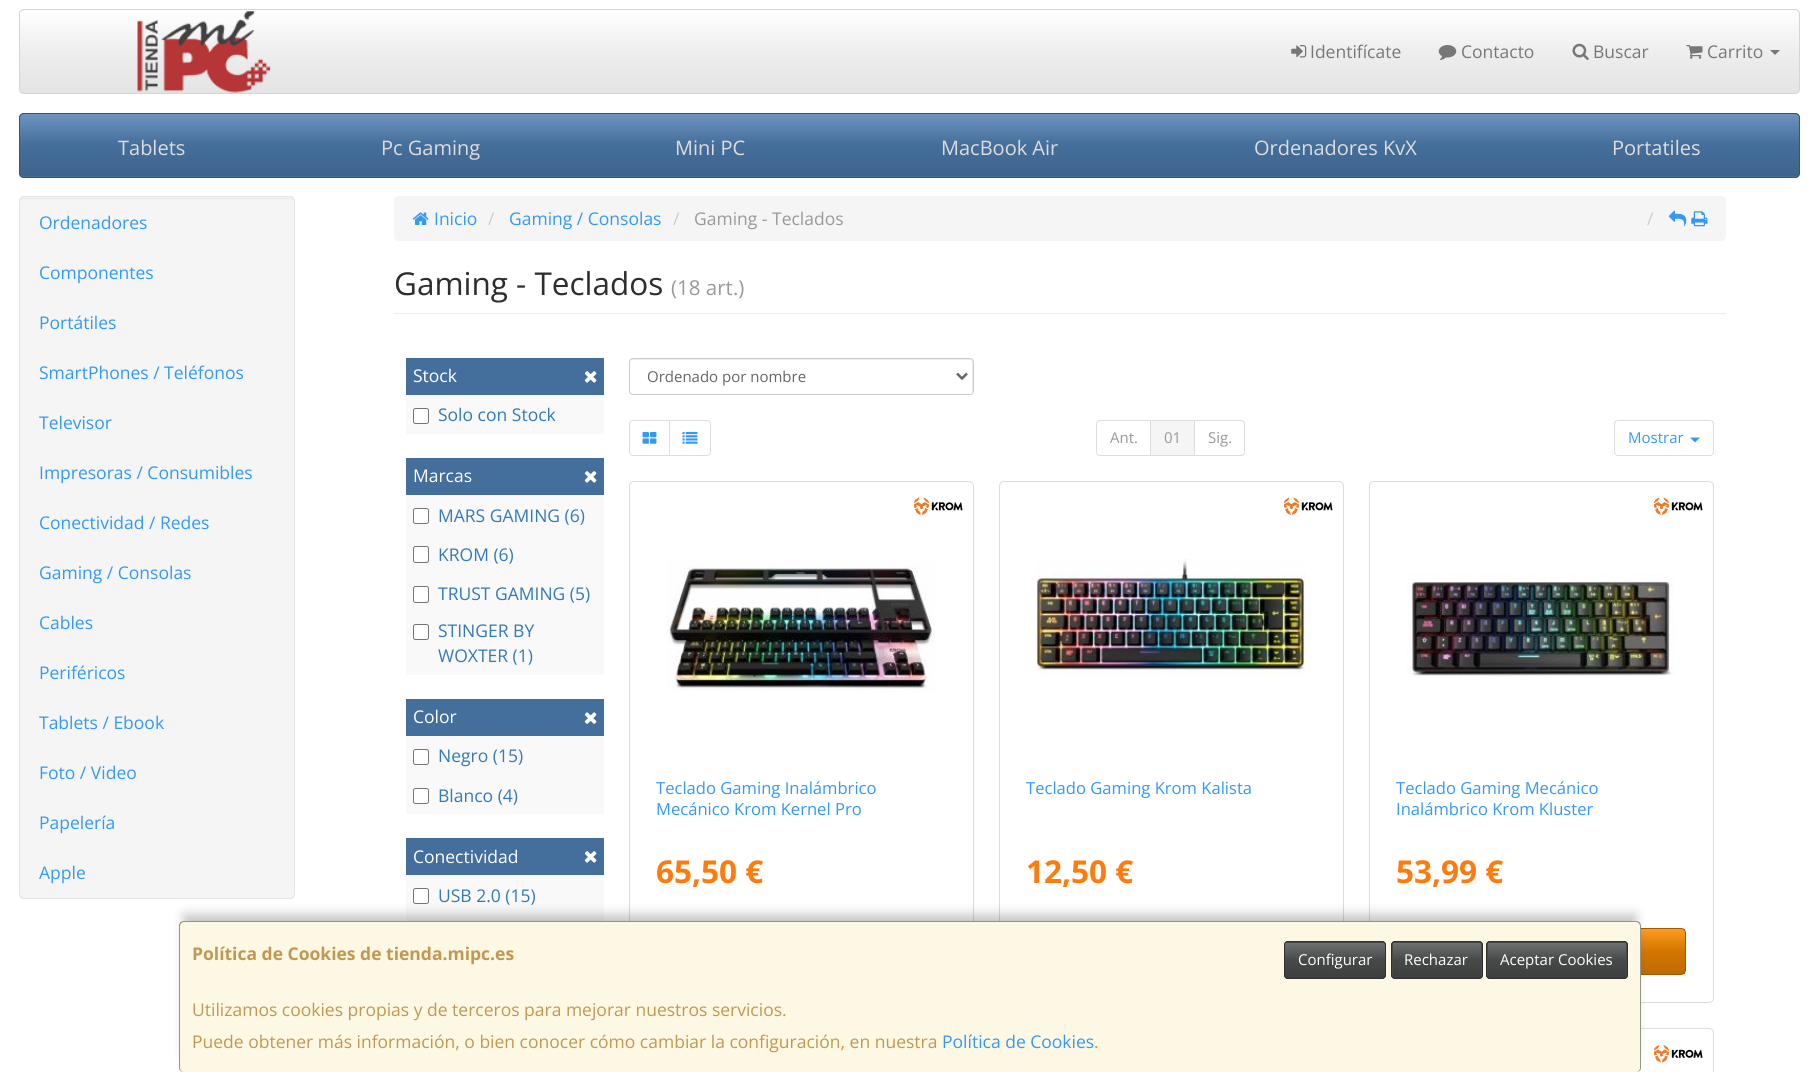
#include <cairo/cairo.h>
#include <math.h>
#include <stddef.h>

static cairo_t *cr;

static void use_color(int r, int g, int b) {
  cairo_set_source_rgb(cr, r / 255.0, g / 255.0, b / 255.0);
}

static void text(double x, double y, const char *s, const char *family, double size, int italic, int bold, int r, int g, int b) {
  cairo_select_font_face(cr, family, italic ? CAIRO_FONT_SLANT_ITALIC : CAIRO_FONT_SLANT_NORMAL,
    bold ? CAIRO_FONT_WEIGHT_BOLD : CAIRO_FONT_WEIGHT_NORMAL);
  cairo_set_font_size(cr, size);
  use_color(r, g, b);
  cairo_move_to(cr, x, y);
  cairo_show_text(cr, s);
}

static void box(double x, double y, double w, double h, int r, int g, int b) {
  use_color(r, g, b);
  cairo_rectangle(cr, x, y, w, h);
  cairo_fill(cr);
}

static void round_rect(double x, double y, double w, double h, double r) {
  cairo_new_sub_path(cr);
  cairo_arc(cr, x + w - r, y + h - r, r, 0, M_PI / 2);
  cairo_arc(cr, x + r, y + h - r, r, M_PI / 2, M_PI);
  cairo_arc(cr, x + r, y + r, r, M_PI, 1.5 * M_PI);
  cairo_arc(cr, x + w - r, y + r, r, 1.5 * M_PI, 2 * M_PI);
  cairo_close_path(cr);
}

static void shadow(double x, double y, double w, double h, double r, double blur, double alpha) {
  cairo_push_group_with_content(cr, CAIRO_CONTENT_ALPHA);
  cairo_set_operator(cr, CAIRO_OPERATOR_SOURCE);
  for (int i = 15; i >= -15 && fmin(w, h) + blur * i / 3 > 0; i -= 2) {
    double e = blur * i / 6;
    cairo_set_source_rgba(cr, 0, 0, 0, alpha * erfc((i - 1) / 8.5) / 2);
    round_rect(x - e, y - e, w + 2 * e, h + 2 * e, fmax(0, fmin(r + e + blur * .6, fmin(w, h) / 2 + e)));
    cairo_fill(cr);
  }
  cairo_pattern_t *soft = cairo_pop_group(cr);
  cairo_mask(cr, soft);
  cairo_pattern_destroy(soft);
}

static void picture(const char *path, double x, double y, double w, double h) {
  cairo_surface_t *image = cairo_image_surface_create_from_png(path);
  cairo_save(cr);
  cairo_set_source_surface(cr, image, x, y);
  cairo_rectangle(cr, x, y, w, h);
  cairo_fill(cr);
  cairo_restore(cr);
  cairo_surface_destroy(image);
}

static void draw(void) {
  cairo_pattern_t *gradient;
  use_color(255, 255, 255);
  cairo_paint(cr);
  cairo_save(cr);
  round_rect(19, 9, 1781, 85, 5);
  cairo_clip(cr);
  gradient = cairo_pattern_create_linear(909, 10, 909, 93);
  cairo_pattern_add_color_stop_rgba(gradient, 0, 1, 1, 1, 1);
  cairo_pattern_add_color_stop_rgba(gradient, 0.5, 0.933, 0.933, 0.933, 1);
  cairo_pattern_add_color_stop_rgba(gradient, 1, 0.894, 0.894, 0.894, 1);
  cairo_set_source(cr, gradient);
  cairo_pattern_destroy(gradient);
  cairo_rectangle(cr, 20, 10, 1779, 83);
  cairo_fill(cr);
  cairo_restore(cr);
  round_rect(19.5, 9.5, 1780, 84, 4.5);
  use_color(213, 213, 213);
  cairo_set_line_width(cr, 1);
  cairo_stroke(cr);
  picture("img_01.png", 137, 11, 134, 82);
  picture("img_02.png", 1291, 45, 16, 13);
  picture("img_03.png", 1438, 45, 19, 15);
  picture("img_04.png", 1572, 43, 17, 17);
  picture("img_05.png", 1686, 45, 17, 14);
  use_color(119, 119, 119);
  cairo_new_path(cr);
  cairo_move_to(cr, 1770, 50);
  cairo_line_to(cr, 1780, 50);
  cairo_line_to(cr, 1775, 55);
  cairo_close_path(cr);
  cairo_fill(cr);
  use_color(68, 110, 155);
  round_rect(19, 113, 1781, 65, 5);
  cairo_fill(cr);
  gradient = cairo_pattern_create_linear(909, 114, 909, 176);
  cairo_pattern_add_color_stop_rgba(gradient, 0, 0.427, 0.58, 0.749, 1);
  cairo_pattern_add_color_stop_rgba(gradient, 0.5, 0.267, 0.431, 0.608, 1);
  cairo_pattern_add_color_stop_rgba(gradient, 1, 0.243, 0.392, 0.553, 1);
  cairo_set_source(cr, gradient);
  cairo_pattern_destroy(gradient);
  cairo_rectangle(cr, 20, 114, 1779, 62);
  cairo_fill(cr);
  round_rect(19.5, 113.5, 1780, 64, 4.5);
  use_color(52, 85, 120);
  cairo_stroke(cr);
  use_color(245, 245, 245);
  round_rect(19, 196, 276, 703, 5);
  cairo_fill(cr);
  use_color(233, 233, 233);
  cairo_new_path(cr);
  cairo_move_to(cr, 24, 199);
  cairo_line_to(cr, 291, 199);
  cairo_line_to(cr, 294, 201);
  cairo_line_to(cr, 294, 202);
  cairo_curve_to(cr, 294, 200, 292, 198, 290, 198);
  cairo_line_to(cr, 24, 198);
  cairo_curve_to(cr, 22, 198, 20, 200, 20, 202);
  cairo_curve_to(cr, 20, 200, 22, 199, 24, 199);
  cairo_close_path(cr);
  cairo_fill(cr);
  round_rect(19.5, 196.5, 275, 702, 4.5);
  use_color(227, 227, 227);
  cairo_stroke(cr);
  use_color(245, 245, 245);
  round_rect(394, 196, 1332, 45, 5);
  cairo_fill(cr);
  picture("img_06.png", 412, 212, 17, 13);
  picture("img_07.png", 1668, 210, 19, 17);
  picture("img_08.png", 1691, 211, 17, 16);
  box(394, 313, 1332, 1, 238, 238, 238);
  box(406, 358, 198, 37, 68, 110, 155);
  picture("img_09.png", 584, 371, 13, 12);
  box(406, 395, 198, 39, 249, 249, 249);
  use_color(255, 255, 255);
  round_rect(413.5, 408.5, 15, 15, 2);
  cairo_fill_preserve(cr);
  use_color(118, 118, 118);
  cairo_stroke(cr);
  box(406, 458, 198, 37, 68, 110, 155);
  picture("img_09.png", 584, 471, 13, 12);
  box(406, 495, 198, 180, 249, 249, 249);
  use_color(255, 255, 255);
  round_rect(413.5, 508.5, 15, 15, 2);
  cairo_fill_preserve(cr);
  use_color(118, 118, 118);
  cairo_stroke(cr);
  use_color(255, 255, 255);
  round_rect(413.5, 546.5, 15, 16, 2);
  cairo_fill_preserve(cr);
  use_color(118, 118, 118);
  cairo_stroke(cr);
  use_color(255, 255, 255);
  round_rect(413.5, 586.5, 15, 16, 2);
  cairo_fill_preserve(cr);
  use_color(118, 118, 118);
  cairo_stroke(cr);
  use_color(255, 255, 255);
  round_rect(413.5, 624.5, 15, 15, 2);
  cairo_fill_preserve(cr);
  use_color(118, 118, 118);
  cairo_stroke(cr);
  box(406, 699, 198, 37, 68, 110, 155);
  picture("img_10.png", 584, 712, 13, 12);
  box(406, 736, 198, 78, 249, 249, 249);
  use_color(255, 255, 255);
  round_rect(413.5, 749.5, 15, 15, 2);
  cairo_fill_preserve(cr);
  use_color(118, 118, 118);
  cairo_stroke(cr);
  use_color(255, 255, 255);
  round_rect(413.5, 788.5, 15, 15, 2);
  cairo_fill_preserve(cr);
  use_color(118, 118, 118);
  cairo_stroke(cr);
  box(406, 838, 198, 37, 68, 110, 155);
  picture("img_09.png", 584, 851, 13, 12);
  box(406, 875, 198, 46, 249, 249, 249);
  use_color(255, 255, 255);
  round_rect(413.5, 888.5, 15, 15, 2);
  cairo_fill_preserve(cr);
  use_color(118, 118, 118);
  cairo_stroke(cr);
  use_color(236, 236, 236);
  cairo_new_path(cr);
  cairo_move_to(cr, 632, 360);
  cairo_line_to(cr, 970, 360);
  cairo_curve_to(cr, 971, 360, 972, 361, 972, 362);
  cairo_line_to(cr, 972, 394);
  cairo_curve_to(cr, 972, 393, 973, 392, 973, 392);
  cairo_line_to(cr, 973, 362);
  cairo_curve_to(cr, 973, 360, 972, 359, 970, 359);
  cairo_line_to(cr, 632, 359);
  cairo_curve_to(cr, 631, 359, 630, 360, 630, 362);
  cairo_curve_to(cr, 630, 361, 631, 360, 632, 360);
  cairo_close_path(cr);
  cairo_fill(cr);
  round_rect(629.5, 358.5, 344, 36, 3.5);
  use_color(204, 204, 204);
  cairo_stroke(cr);
  cairo_new_path(cr);
  cairo_move_to(cr, 957, 373.5);
  cairo_line_to(cr, 962, 378.5);
  cairo_line_to(cr, 967, 373.5);
  use_color(102, 102, 102);
  cairo_set_line_width(cr, 2.5);
  cairo_stroke(cr);
  cairo_new_path(cr);
  cairo_move_to(cr, 633, 420.5);
  cairo_line_to(cr, 669.5, 420.5);
  cairo_line_to(cr, 669.5, 455.5);
  cairo_line_to(cr, 633, 455.5);
  cairo_curve_to(cr, 631, 455.5, 629.5, 454, 629.5, 452);
  cairo_line_to(cr, 629.5, 424);
  cairo_curve_to(cr, 629.5, 422, 631, 420.5, 633, 420.5);
  cairo_close_path(cr);
  use_color(221, 221, 221);
  cairo_set_line_width(cr, 1);
  cairo_stroke(cr);
  picture("img_11.png", 642, 431, 15, 13);
  use_color(255, 255, 255);
  cairo_new_path(cr);
  cairo_move_to(cr, 669.5, 420.5);
  cairo_line_to(cr, 707, 420.5);
  cairo_curve_to(cr, 709, 420.5, 710.5, 422, 710.5, 424);
  cairo_line_to(cr, 710.5, 452);
  cairo_curve_to(cr, 710.5, 454, 709, 455.5, 707, 455.5);
  cairo_line_to(cr, 669.5, 455.5);
  cairo_close_path(cr);
  cairo_fill_preserve(cr);
  use_color(221, 221, 221);
  cairo_stroke(cr);
  picture("img_12.png", 682, 431, 16, 13);
  cairo_new_path(cr);
  cairo_move_to(cr, 1100, 420.5);
  cairo_line_to(cr, 1150.5, 420.5);
  cairo_line_to(cr, 1150.5, 455.5);
  cairo_line_to(cr, 1100, 455.5);
  cairo_curve_to(cr, 1098, 455.5, 1096.5, 454, 1096.5, 452);
  cairo_line_to(cr, 1096.5, 424);
  cairo_curve_to(cr, 1096.5, 422, 1098, 420.5, 1100, 420.5);
  cairo_close_path(cr);
  cairo_stroke(cr);
  cairo_new_path(cr);
  cairo_move_to(cr, 1194.5, 420.5);
  cairo_line_to(cr, 1241, 420.5);
  cairo_curve_to(cr, 1243, 420.5, 1244.5, 422, 1244.5, 424);
  cairo_line_to(cr, 1244.5, 452);
  cairo_curve_to(cr, 1244.5, 454, 1243, 455.5, 1241, 455.5);
  cairo_line_to(cr, 1194.5, 455.5);
  cairo_close_path(cr);
  cairo_stroke(cr);
  use_color(245, 245, 245);
  cairo_rectangle(cr, 1150.5, 420.5, 44, 35);
  cairo_fill_preserve(cr);
  use_color(221, 221, 221);
  cairo_stroke(cr);
  round_rect(1614.5, 420.5, 99, 35, 3.5);
  cairo_stroke(cr);
  use_color(51, 153, 243);
  cairo_new_path(cr);
  cairo_move_to(cr, 1690, 437.5);
  cairo_line_to(cr, 1700, 437.5);
  cairo_line_to(cr, 1695, 442.5);
  cairo_close_path(cr);
  cairo_fill(cr);
  round_rect(629.5, 481.5, 344, 521, 4.5);
  use_color(221, 221, 221);
  cairo_stroke(cr);
  picture("img_13.png", 914, 497, 49, 18);
  picture("img_14.png", 667, 560, 268, 132);
  round_rect(999.5, 481.5, 344, 521, 4.5);
  cairo_stroke(cr);
  picture("img_13.png", 1284, 497, 49, 18);
  picture("img_15.png", 1036, 559, 269, 116);
  round_rect(1369.5, 481.5, 344, 521, 4.5);
  cairo_stroke(cr);
  picture("img_13.png", 1654, 497, 49, 18);
  picture("img_16.png", 1407, 574, 268, 103);
  gradient = cairo_pattern_create_linear(1541, 929, 1541, 974);
  cairo_pattern_add_color_stop_rgba(gradient, 0, 1, 0.612, 0.129, 1);
  cairo_pattern_add_color_stop_rgba(gradient, 0.5, 0.831, 0.459, 0, 1);
  cairo_pattern_add_color_stop_rgba(gradient, 1, 0.753, 0.416, 0, 1);
  cairo_set_source(cr, gradient);
  cairo_pattern_destroy(gradient);
  cairo_rectangle(cr, 1641, 929, 44, 45);
  cairo_fill(cr);
  round_rect(1396.5, 928.5, 289, 46, 4.5);
  use_color(161, 89, 0);
  cairo_stroke(cr);
  round_rect(1369.5, 1028.5, 344, 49, 4.5);
  use_color(221, 221, 221);
  cairo_stroke(cr);
  picture("img_17.png", 1654, 1045, 49, 18);
  use_color(0, 0, 0);
  shadow(185, 915, 1450, 139, 0, 6, 0.25);
  use_color(252, 248, 227);
  round_rect(179, 921, 1462, 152, 5);
  cairo_fill(cr);
  cairo_set_source_rgba(cr, 0, 0, 0, 0.4);
  cairo_set_fill_rule(cr, CAIRO_FILL_RULE_EVEN_ODD);
  cairo_new_path(cr);
  cairo_move_to(cr, 184, 921);
  cairo_line_to(cr, 1636, 921);
  cairo_curve_to(cr, 1639, 921, 1641, 923, 1641, 926);
  cairo_line_to(cr, 1641, 1068);
  cairo_curve_to(cr, 1641, 1070, 1639, 1072, 1636, 1072);
  cairo_line_to(cr, 184, 1072);
  cairo_curve_to(cr, 181, 1072, 179, 1070, 179, 1068);
  cairo_line_to(cr, 179, 926);
  cairo_curve_to(cr, 179, 923, 181, 921, 184, 921);
  cairo_close_path(cr);
  cairo_move_to(cr, 184, 922);
  cairo_line_to(cr, 1636, 922);
  cairo_curve_to(cr, 1638, 922, 1640, 924, 1640, 926);
  cairo_line_to(cr, 1640, 1068);
  cairo_curve_to(cr, 1640, 1070, 1638, 1072, 1636, 1072);
  cairo_line_to(cr, 184, 1072);
  cairo_curve_to(cr, 182, 1072, 180, 1070, 180, 1068);
  cairo_line_to(cr, 180, 926);
  cairo_curve_to(cr, 180, 924, 182, 922, 184, 922);
  cairo_close_path(cr);
  cairo_fill(cr);
  use_color(71, 73, 73);
  round_rect(1284, 941, 102, 38, 4);
  cairo_fill(cr);
  gradient = cairo_pattern_create_linear(1335, 943, 1335, 978);
  cairo_pattern_add_color_stop_rgba(gradient, 0, 0.427, 0.439, 0.439, 1);
  cairo_pattern_add_color_stop_rgba(gradient, 0.5, 0.278, 0.286, 0.286, 1);
  cairo_pattern_add_color_stop_rgba(gradient, 1, 0.239, 0.247, 0.247, 1);
  cairo_set_source(cr, gradient);
  cairo_pattern_destroy(gradient);
  cairo_rectangle(cr, 1285, 943, 100, 35);
  cairo_fill(cr);
  round_rect(1284.5, 941.5, 101, 37, 3.5);
  use_color(46, 47, 47);
  cairo_stroke(cr);
  use_color(71, 73, 73);
  round_rect(1391, 941, 92, 38, 4);
  cairo_fill(cr);
  gradient = cairo_pattern_create_linear(1437, 943, 1437, 978);
  cairo_pattern_add_color_stop_rgba(gradient, 0, 0.427, 0.439, 0.439, 1);
  cairo_pattern_add_color_stop_rgba(gradient, 0.5, 0.278, 0.286, 0.286, 1);
  cairo_pattern_add_color_stop_rgba(gradient, 1, 0.239, 0.247, 0.247, 1);
  cairo_set_source(cr, gradient);
  cairo_pattern_destroy(gradient);
  cairo_rectangle(cr, 1393, 943, 88, 35);
  cairo_fill(cr);
  round_rect(1391.5, 941.5, 91, 37, 3.5);
  use_color(46, 47, 47);
  cairo_stroke(cr);
  use_color(71, 73, 73);
  round_rect(1486, 941, 142, 38, 4);
  cairo_fill(cr);
  gradient = cairo_pattern_create_linear(1557, 943, 1557, 978);
  cairo_pattern_add_color_stop_rgba(gradient, 0, 0.427, 0.439, 0.439, 1);
  cairo_pattern_add_color_stop_rgba(gradient, 0.5, 0.278, 0.286, 0.286, 1);
  cairo_pattern_add_color_stop_rgba(gradient, 1, 0.239, 0.247, 0.247, 1);
  cairo_set_source(cr, gradient);
  cairo_pattern_destroy(gradient);
  cairo_rectangle(cr, 1488, 943, 138, 35);
  cairo_fill(cr);
  round_rect(1486.5, 941.5, 141, 37, 3.5);
  use_color(46, 47, 47);
  cairo_stroke(cr);
  text(1310, 58, "Identifícate", "Open Sans", 17.5, 0, 0, 119, 119, 119);
  text(1461, 58, "Contacto", "Open Sans", 17.5, 0, 0, 119, 119, 119);
  text(1593, 58, "Buscar", "Open Sans", 17.5, 0, 0, 119, 119, 119);
  text(1707, 58, "Carrito", "Open Sans", 17.5, 0, 0, 119, 119, 119);
  text(118, 155, "Tablets", "Open Sans", 20, 0, 0, 221, 221, 221);
  text(381, 155, "Pc Gaming", "Open Sans", 20, 0, 0, 221, 221, 221);
  text(675, 155, "Mini PC", "Open Sans", 20, 0, 0, 221, 221, 221);
  text(941, 155, "MacBook Air", "Open Sans", 20, 0, 0, 221, 221, 221);
  text(1254, 155, "Ordenadores KvX", "Open Sans", 20, 0, 0, 221, 221, 221);
  text(1612, 155, "Portatiles", "Open Sans", 20, 0, 0, 221, 221, 221);
  text(39, 229, "Ordenadores", "Open Sans", 17.5, 0, 0, 51, 153, 243);
  text(39, 279, "Componentes", "Open Sans", 17.5, 0, 0, 51, 153, 243);
  text(39, 329, "Portátiles", "Open Sans", 17.5, 0, 0, 51, 153, 243);
  text(39, 379, "SmartPhones / Teléfonos", "Open Sans", 17.5, 0, 0, 51, 153, 243);
  text(39, 429, "Televisor", "Open Sans", 17.5, 0, 0, 51, 153, 243);
  text(39, 479, "Impresoras / Consumibles", "Open Sans", 17.5, 0, 0, 51, 153, 243);
  text(39, 529, "Conectividad / Redes", "Open Sans", 17.5, 0, 0, 51, 153, 243);
  text(39, 579, "Gaming / Consolas", "Open Sans", 17.5, 0, 0, 51, 153, 243);
  text(39, 629, "Cables", "Open Sans", 17.5, 0, 0, 51, 153, 243);
  text(39, 679, "Periféricos", "Open Sans", 17.5, 0, 0, 51, 153, 243);
  text(39, 729, "Tablets / Ebook", "Open Sans", 17.5, 0, 0, 51, 153, 243);
  text(39, 779, "Foto / Video", "Open Sans", 17.5, 0, 0, 51, 153, 243);
  text(39, 829, "Papelería", "Open Sans", 17.5, 0, 0, 51, 153, 243);
  text(39, 879, "Apple", "Open Sans", 17.5, 0, 0, 51, 153, 243);
  text(434, 225, "Inicio", "Open Sans", 17.5, 0, 0, 51, 153, 243);
  text(488, 225, "/", "Open Sans", 17.5, 0, 0, 204, 204, 204);
  text(509, 225, "Gaming / Consolas", "Open Sans", 17.5, 0, 0, 51, 153, 243);
  text(673, 225, "/", "Open Sans", 17.5, 0, 0, 204, 204, 204);
  text(694, 225, "Gaming - Teclados", "Open Sans", 17.5, 0, 0, 153, 153, 153);
  text(1647, 225, "/", "Open Sans", 17.5, 0, 0, 204, 204, 204);
  text(394, 295, "Gaming - Teclados", "Open Sans", 31.5, 0, 0, 45, 45, 45);
  text(671, 295, "(18 art.)", "Open Sans", 20.5, 0, 0, 153, 153, 153);
  text(413, 382, "Stock", "Open Sans", 17.5, 0, 0, 255, 255, 255);
  text(438, 421, "Solo con Stock", "Open Sans", 17.5, 0, 0, 51, 122, 183);
  text(413, 482, "Marcas", "Open Sans", 17.5, 0, 0, 255, 255, 255);
  text(438, 522, "MARS GAMING (6)", "Open Sans", 17.5, 0, 0, 51, 122, 183);
  text(438, 561, "KROM (6)", "Open Sans", 17.5, 0, 0, 51, 122, 183);
  text(438, 600, "TRUST GAMING (5)", "Open Sans", 17.5, 0, 0, 51, 122, 183);
  text(438, 637, "STINGER BY", "Open Sans", 17.5, 0, 0, 51, 122, 183);
  text(438, 662, "WOXTER (1)", "Open Sans", 17.5, 0, 0, 51, 122, 183);
  text(413, 723, "Color", "Open Sans", 17.5, 0, 0, 255, 255, 255);
  text(438, 762, "Negro (15)", "Open Sans", 17.5, 0, 0, 51, 122, 183);
  text(438, 802, "Blanco (4)", "Open Sans", 17.5, 0, 0, 51, 122, 183);
  text(413, 863, "Conectividad", "Open Sans", 17.5, 0, 0, 255, 255, 255);
  text(438, 902, "USB 2.0 (15)", "Open Sans", 17.5, 0, 0, 51, 122, 183);
  text(647, 382, "Ordenado por nombre", "Open Sans", 15, 0, 0, 102, 102, 102);
  text(1110, 443, "Ant.", "Open Sans", 15, 0, 0, 153, 153, 153);
  text(1164, 443, "01", "Open Sans", 15, 0, 0, 153, 153, 153);
  text(1208, 443, "Sig.", "Open Sans", 15, 0, 0, 153, 153, 153);
  text(1628, 443, "Mostrar", "Open Sans", 15, 0, 0, 51, 153, 243);
  text(656, 794, "Teclado Gaming Inalámbrico", "Open Sans", 16.6, 0, 0, 51, 153, 243);
  text(656, 815, "Mecánico Krom Kernel Pro", "Open Sans", 16.6, 0, 0, 51, 153, 243);
  text(656, 883, "65,50 €", "Open Sans", 31.5, 0, 1, 255, 123, 13);
  text(1026, 794, "Teclado Gaming Krom Kalista", "Open Sans", 16.6, 0, 0, 51, 153, 243);
  text(1026, 883, "12,50 €", "Open Sans", 31.5, 0, 1, 255, 123, 13);
  text(1396, 794, "Teclado Gaming Mecánico", "Open Sans", 16.6, 0, 0, 51, 153, 243);
  text(1396, 815, "Inalámbrico Krom Kluster", "Open Sans", 16.6, 0, 0, 51, 153, 243);
  text(1396, 883, "53,99 €", "Open Sans", 31.5, 0, 1, 255, 123, 13);
  text(192, 960, "Política de Cookies de tienda.mipc.es", "Open Sans", 17.5, 0, 1, 192, 152, 83);
  text(1298, 965, "Configurar", "Open Sans", 15, 0, 0, 255, 255, 255);
  text(1404, 965, "Rechazar", "Open Sans", 15, 0, 0, 255, 255, 255);
  text(1500, 965, "Aceptar Cookies", "Open Sans", 15, 0, 0, 255, 255, 255);
  text(192, 1016, "Utilizamos cookies propias y de terceros para mejorar nuestros servicios.", "Open Sans", 17.5, 0, 0, 192, 152, 83);
  text(192, 1048, "Puede obtener más información, o bien conocer cómo cambiar la configuración, en nuestra", "Open Sans", 17.5, 0, 0, 192, 152, 83);
  text(942, 1048, "Política de Cookies", "Open Sans", 17.5, 0, 0, 51, 153, 243);
  text(1094, 1048, ".", "Open Sans", 17.5, 0, 0, 192, 152, 83);
}

int main(void) {
  cairo_surface_t *surface = cairo_image_surface_create(CAIRO_FORMAT_RGB24, 1818, 1072);
  cr = cairo_create(surface);
  cairo_font_options_t *options = cairo_font_options_create();
  cairo_font_options_set_hint_metrics(options, CAIRO_HINT_METRICS_OFF);
  cairo_font_options_set_hint_style(options, CAIRO_HINT_STYLE_NONE);
  cairo_set_font_options(cr, options);
  cairo_set_miter_limit(cr, 4);
  draw();
  cairo_surface_write_to_png(surface, "out.png");
  cairo_font_options_destroy(options);
  cairo_destroy(cr);
  cairo_surface_destroy(surface);
  return 0;
}
